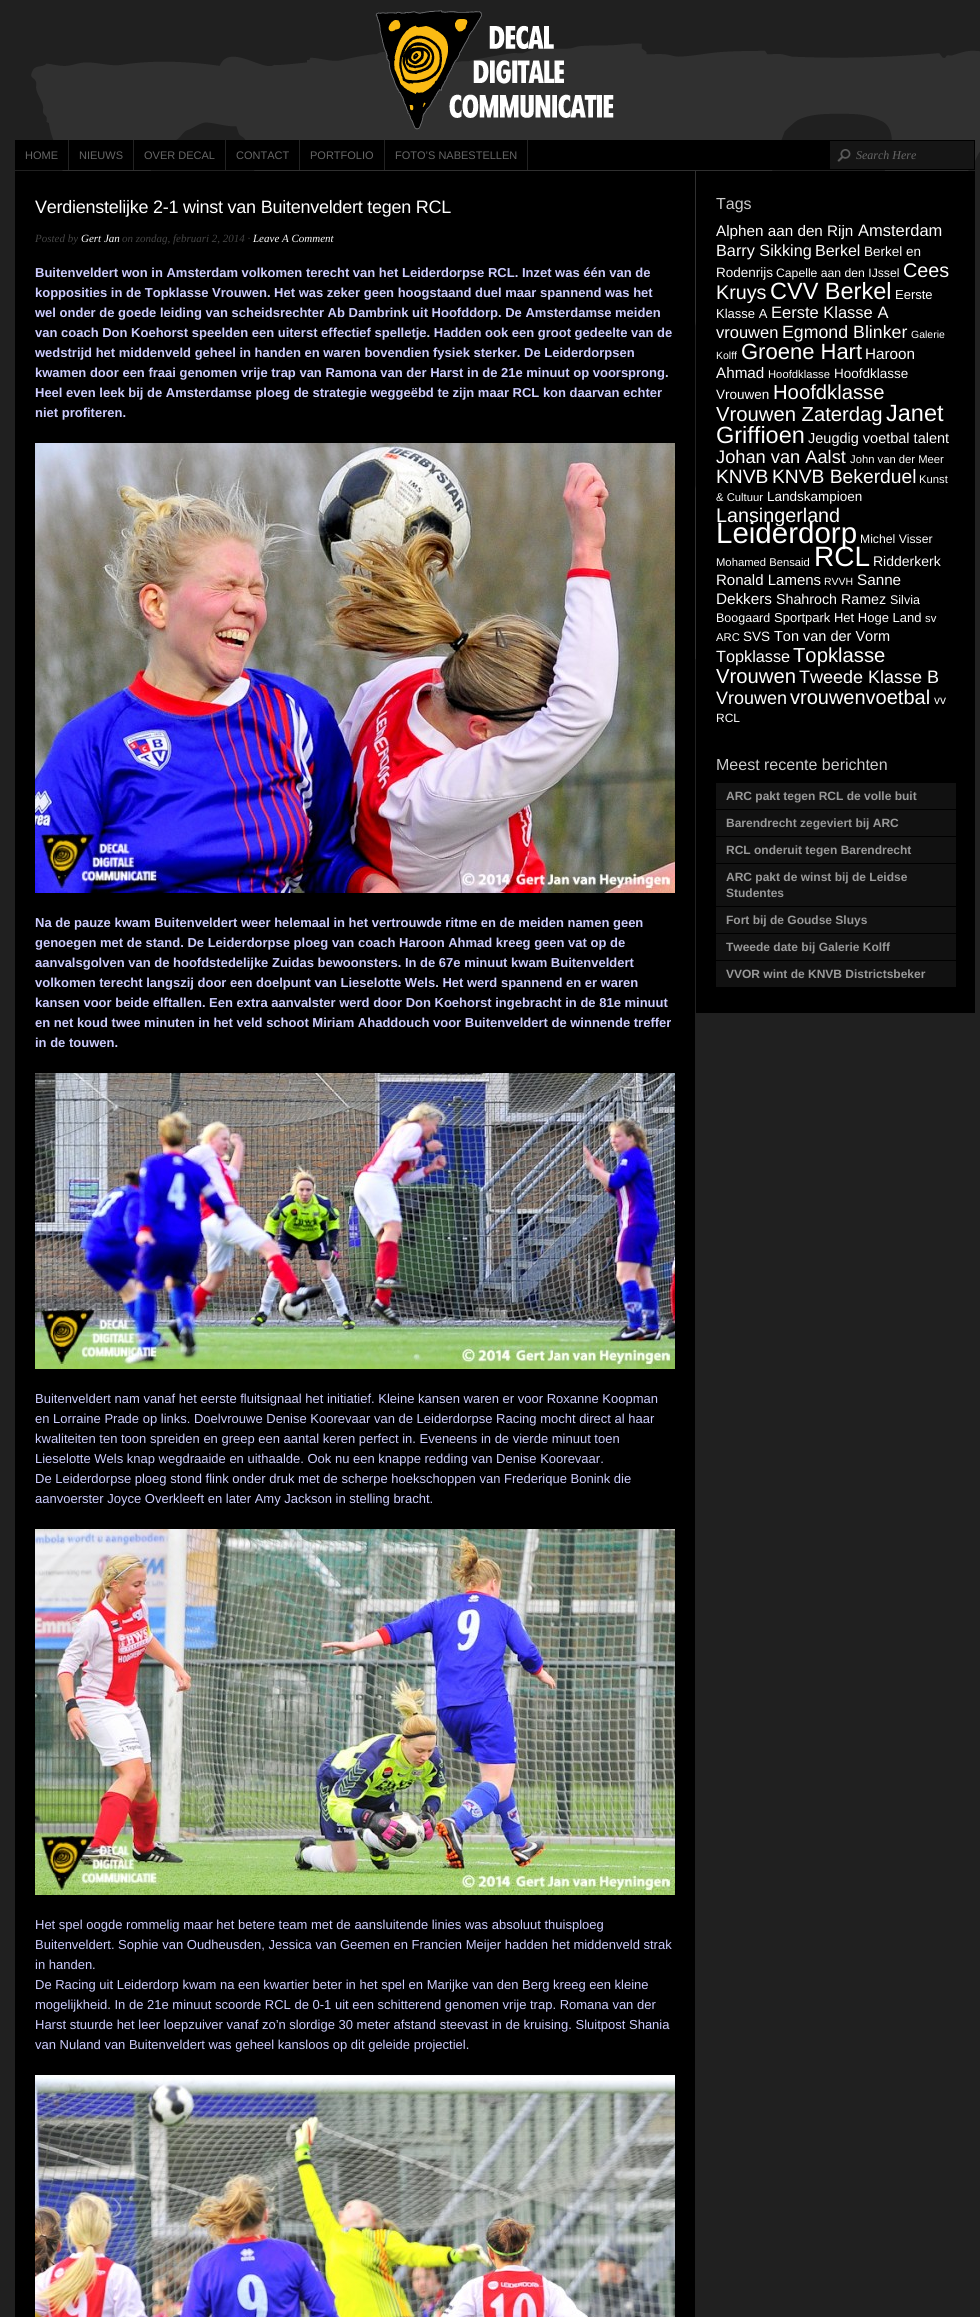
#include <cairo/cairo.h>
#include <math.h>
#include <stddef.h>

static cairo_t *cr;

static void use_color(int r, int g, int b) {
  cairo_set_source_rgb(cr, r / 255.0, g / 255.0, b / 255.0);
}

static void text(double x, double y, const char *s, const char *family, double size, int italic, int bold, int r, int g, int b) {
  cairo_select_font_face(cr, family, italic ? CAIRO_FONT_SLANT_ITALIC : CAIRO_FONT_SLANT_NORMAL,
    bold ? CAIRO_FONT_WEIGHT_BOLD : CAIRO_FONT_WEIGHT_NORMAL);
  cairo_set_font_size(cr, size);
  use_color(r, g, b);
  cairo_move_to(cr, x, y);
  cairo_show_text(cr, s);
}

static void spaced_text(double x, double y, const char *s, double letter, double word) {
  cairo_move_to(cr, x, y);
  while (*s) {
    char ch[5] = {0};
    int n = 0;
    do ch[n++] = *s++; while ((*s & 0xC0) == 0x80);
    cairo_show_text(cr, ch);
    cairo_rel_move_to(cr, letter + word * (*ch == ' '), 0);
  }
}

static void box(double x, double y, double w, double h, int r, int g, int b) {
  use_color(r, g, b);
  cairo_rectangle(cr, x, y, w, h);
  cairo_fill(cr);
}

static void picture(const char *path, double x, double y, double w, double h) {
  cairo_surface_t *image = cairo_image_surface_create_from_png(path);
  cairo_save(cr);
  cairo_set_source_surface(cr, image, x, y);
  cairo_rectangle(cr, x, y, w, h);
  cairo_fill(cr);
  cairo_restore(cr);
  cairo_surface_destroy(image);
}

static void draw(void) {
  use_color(32, 32, 32);
  cairo_paint(cr);
  picture("img_01.png", 31, 43, 949, 617);
  picture("img_02.png", 375, 10, 239, 120);
  box(15, 140, 960, 30, 0, 0, 0);
  box(68, 140, 1, 30, 34, 34, 34);
  box(133, 140, 1, 30, 34, 34, 34);
  box(225, 140, 1, 30, 34, 34, 34);
  box(299, 140, 1, 30, 34, 34, 34);
  box(384, 140, 1, 30, 34, 34, 34);
  box(527, 140, 1, 30, 34, 34, 34);
  box(830, 141, 144, 28, 21, 21, 21);
  picture("img_03.png", 837, 149, 14, 13);
  box(15, 171, 680, 2146, 0, 0, 0);
  picture("img_04.png", 35, 443, 640, 450);
  picture("img_05.png", 35, 1073, 640, 296);
  picture("img_06.png", 35, 1529, 640, 366);
  picture("img_07.png", 35, 2075, 640, 242);
  box(696, 171, 279, 842, 0, 0, 0);
  box(716, 783, 240, 26, 17, 17, 17);
  box(716, 810, 240, 26, 17, 17, 17);
  box(716, 837, 240, 26, 17, 17, 17);
  box(716, 864, 240, 42, 17, 17, 17);
  box(716, 907, 240, 26, 17, 17, 17);
  box(716, 934, 240, 26, 17, 17, 17);
  box(716, 961, 240, 26, 17, 17, 17);
  text(25, 159, "HOME", "Liberation Sans", 11, 0, 0, 102, 102, 102);
  text(79, 159, "NIEUWS", "Liberation Sans", 11, 0, 0, 102, 102, 102);
  text(144, 159, "OVER DECAL", "Liberation Sans", 11, 0, 0, 102, 102, 102);
  text(236, 159, "CONTACT", "Liberation Sans", 11, 0, 0, 102, 102, 102);
  text(310, 159, "PORTFOLIO", "Liberation Sans", 11, 0, 0, 102, 102, 102);
  text(395, 159, "FOTO’S NABESTELLEN", "Liberation Sans", 11, 0, 0, 102, 102, 102);
  text(856, 159, "Search Here", "Liberation Serif", 12, 1, 0, 102, 102, 102);
  cairo_select_font_face(cr, "Liberation Sans", CAIRO_FONT_SLANT_NORMAL, CAIRO_FONT_WEIGHT_NORMAL);
  cairo_set_font_size(cr, 18);
  use_color(255, 255, 255);
  spaced_text(35, 213, "Verdienstelijke 2-1 winst van Buitenveldert tegen RCL", -0.25, 0);
  text(35, 242, "Posted by", "Liberation Serif", 11, 1, 0, 68, 68, 68);
  text(81, 242, "Gert Jan", "Liberation Serif", 11, 1, 0, 255, 255, 255);
  text(122, 242, "on zondag, februari 2, 2014 ·", "Liberation Serif", 11, 1, 0, 68, 68, 68);
  text(253, 242, "Leave A Comment", "Liberation Serif", 11, 1, 0, 255, 255, 255);
  text(35, 277, "Buitenveldert won in Amsterdam volkomen terecht van het Leiderdorpse RCL. Inzet was één van de", "Liberation Sans", 13, 0, 1, 204, 204, 255);
  text(35, 297, "kopposities in de Topklasse Vrouwen. Het was zeker geen hoogstaand duel maar spannend was het", "Liberation Sans", 13, 0, 1, 204, 204, 255);
  text(35, 317, "wel onder de goede leiding van scheidsrechter Ab Dambrink uit Hoofddorp. De Amsterdamse meiden", "Liberation Sans", 13, 0, 1, 204, 204, 255);
  text(35, 337, "van coach Don Koehorst speelden een uiterst effectief spelletje. Hadden ook een groot gedeelte van de", "Liberation Sans", 13, 0, 1, 204, 204, 255);
  text(35, 357, "wedstrijd het middenveld geheel in handen en waren bovendien fysiek sterker. De Leiderdorpsen", "Liberation Sans", 13, 0, 1, 204, 204, 255);
  text(35, 377, "kwamen door een fraai genomen vrije trap van Ramona van der Harst in de 21e minuut op voorsprong.", "Liberation Sans", 13, 0, 1, 204, 204, 255);
  text(35, 397, "Heel even leek bij de Amsterdamse ploeg de strategie weggeëbd te zijn maar RCL kon daarvan echter", "Liberation Sans", 13, 0, 1, 204, 204, 255);
  text(35, 417, "niet profiteren.", "Liberation Sans", 13, 0, 1, 204, 204, 255);
  text(35, 927, "Na de pauze kwam Buitenveldert weer helemaal in het vertrouwde ritme en de meiden namen geen", "Liberation Sans", 13, 0, 1, 204, 204, 255);
  text(35, 947, "genoegen met de stand. De Leiderdorpse ploeg van coach Haroon Ahmad kreeg geen vat op de", "Liberation Sans", 13, 0, 1, 204, 204, 255);
  text(35, 967, "aanvalsgolven van de hoofdstedelijke Zuidas bewoonsters. In de 67e minuut kwam Buitenveldert", "Liberation Sans", 13, 0, 1, 204, 204, 255);
  text(35, 987, "volkomen terecht langszij door een doelpunt van Lieselotte Wels. Het werd spannend en er waren", "Liberation Sans", 13, 0, 1, 204, 204, 255);
  text(35, 1007, "kansen voor beide elftallen. Een extra aanvalster werd door Don Koehorst ingebracht in de 81e minuut", "Liberation Sans", 13, 0, 1, 204, 204, 255);
  text(35, 1027, "en net koud twee minuten in het veld schoot Miriam Ahaddouch voor Buitenveldert de winnende treffer", "Liberation Sans", 13, 0, 1, 204, 204, 255);
  text(35, 1047, "in de touwen.", "Liberation Sans", 13, 0, 1, 204, 204, 255);
  text(35, 1403, "Buitenveldert nam vanaf het eerste fluitsignaal het initiatief. Kleine kansen waren er voor Roxanne Koopman", "Liberation Sans", 13, 0, 0, 204, 204, 255);
  text(35, 1423, "en Lorraine Prade op links. Doelvrouwe Denise Koorevaar van de Leiderdorpse Racing mocht direct al haar", "Liberation Sans", 13, 0, 0, 204, 204, 255);
  text(35, 1443, "kwaliteiten ten toon spreiden en greep een aantal keren perfect in. Eveneens in de vierde minuut toen", "Liberation Sans", 13, 0, 0, 204, 204, 255);
  text(35, 1463, "Lieselotte Wels knap wegdraaide en uithaalde. Ook nu een knappe redding van Denise Koorevaar.", "Liberation Sans", 13, 0, 0, 204, 204, 255);
  text(35, 1483, "De Leiderdorpse ploeg stond flink onder druk met de scherpe hoekschoppen van Frederique Bonink die", "Liberation Sans", 13, 0, 0, 204, 204, 255);
  text(35, 1503, "aanvoerster Joyce Overkleeft en later Amy Jackson in stelling bracht.", "Liberation Sans", 13, 0, 0, 204, 204, 255);
  text(35, 1929, "Het spel oogde rommelig maar het betere team met de aansluitende linies was absoluut thuisploeg", "Liberation Sans", 13, 0, 0, 204, 204, 255);
  text(35, 1949, "Buitenveldert. Sophie van Oudheusden, Jessica van Geemen en Francien Meijer hadden het middenveld strak", "Liberation Sans", 13, 0, 0, 204, 204, 255);
  text(35, 1969, "in handen.", "Liberation Sans", 13, 0, 0, 204, 204, 255);
  text(35, 1989, "De Racing uit Leiderdorp kwam na een kwartier beter in het spel en Marijke van den Berg kreeg een kleine", "Liberation Sans", 13, 0, 0, 204, 204, 255);
  text(35, 2009, "mogelijkheid. In de 21e minuut scoorde RCL de 0-1 uit een schitterend genomen vrije trap. Romana van der", "Liberation Sans", 13, 0, 0, 204, 204, 255);
  text(35, 2029, "Harst stuurde het leer loepzuiver vanaf zo’n slordige 30 meter afstand steevast in de kruising. Sluitpost Shania", "Liberation Sans", 13, 0, 0, 204, 204, 255);
  text(35, 2049, "van Nuland van Buitenveldert was geheel kansloos op dit geleide projectiel.", "Liberation Sans", 13, 0, 0, 204, 204, 255);
  text(716, 209, "Tags", "Liberation Sans", 16, 0, 0, 204, 204, 204);
  text(716, 236, "Alphen aan den Rijn", "Liberation Sans", 15.25, 0, 0, 255, 255, 255);
  text(858, 236, "Amsterdam", "Liberation Sans", 16.5, 0, 0, 255, 255, 255);
  text(716, 256, "Barry Sikking", "Liberation Sans", 16.25, 0, 0, 255, 255, 255);
  text(815, 256, "Berkel", "Liberation Sans", 16, 0, 0, 255, 255, 255);
  text(864, 256, "Berkel en", "Liberation Sans", 13.5, 0, 0, 255, 255, 255);
  text(716, 277, "Rodenrijs", "Liberation Sans", 13.5, 0, 0, 255, 255, 255);
  text(776, 277, "Capelle aan den IJssel", "Liberation Sans", 12.2, 0, 0, 255, 255, 255);
  text(903, 277, "Cees", "Liberation Sans", 19.75, 0, 0, 255, 255, 255);
  text(716, 299, "Kruys", "Liberation Sans", 19.75, 0, 0, 255, 255, 255);
  text(770, 299, "CVV Berkel", "Liberation Sans", 23.5, 0, 0, 255, 255, 255);
  text(895, 299, "Eerste", "Liberation Sans", 13, 0, 0, 255, 255, 255);
  text(716, 318, "Klasse A", "Liberation Sans", 13, 0, 0, 255, 255, 255);
  text(771, 318, "Eerste Klasse A", "Liberation Sans", 16.5, 0, 0, 255, 255, 255);
  text(716, 338, "vrouwen", "Liberation Sans", 16.5, 0, 0, 255, 255, 255);
  text(782, 338, "Egmond Blinker", "Liberation Sans", 17.75, 0, 0, 255, 255, 255);
  text(911, 338, "Galerie", "Liberation Sans", 10.5, 0, 0, 255, 255, 255);
  text(716, 359, "Kolff", "Liberation Sans", 10.5, 0, 0, 255, 255, 255);
  text(741, 359, "Groene Hart", "Liberation Sans", 22, 0, 0, 255, 255, 255);
  text(865, 359, "Haroon", "Liberation Sans", 15.25, 0, 0, 255, 255, 255);
  text(716, 378, "Ahmad", "Liberation Sans", 15.25, 0, 0, 255, 255, 255);
  text(768, 378, "Hoofdklasse", "Liberation Sans", 11.25, 0, 0, 255, 255, 255);
  text(834, 378, "Hoofdklasse", "Liberation Sans", 13.5, 0, 0, 255, 255, 255);
  text(716, 399, "Vrouwen", "Liberation Sans", 13.5, 0, 0, 255, 255, 255);
  text(773, 399, "Hoofdklasse", "Liberation Sans", 20.25, 0, 0, 255, 255, 255);
  text(716, 421, "Vrouwen Zaterdag", "Liberation Sans", 20.25, 0, 0, 255, 255, 255);
  text(886, 421, "Janet", "Liberation Sans", 23.5, 0, 0, 255, 255, 255);
  text(716, 443, "Griffioen", "Liberation Sans", 23.5, 0, 0, 255, 255, 255);
  text(808, 443, "Jeugdig voetbal talent", "Liberation Sans", 14.5, 0, 0, 255, 255, 255);
  text(716, 463, "Johan van Aalst", "Liberation Sans", 18.25, 0, 0, 255, 255, 255);
  text(850, 463, "John van der Meer", "Liberation Sans", 11.25, 0, 0, 255, 255, 255);
  text(716, 483, "KNVB", "Liberation Sans", 19.25, 0, 0, 255, 255, 255);
  text(772, 483, "KNVB Bekerduel", "Liberation Sans", 19.25, 0, 0, 255, 255, 255);
  text(919, 483, "Kunst", "Liberation Sans", 11.25, 0, 0, 255, 255, 255);
  text(716, 501, "& Cultuur", "Liberation Sans", 11.25, 0, 0, 255, 255, 255);
  text(767, 501, "Landskampioen", "Liberation Sans", 13.5, 0, 0, 255, 255, 255);
  text(716, 522, "Lansingerland", "Liberation Sans", 19.75, 0, 0, 255, 255, 255);
  text(716, 543, "Leiderdorp", "Liberation Sans", 29.5, 0, 0, 255, 255, 255);
  text(860, 543, "Michel Visser", "Liberation Sans", 12.2, 0, 0, 255, 255, 255);
  text(716, 566, "Mohamed Bensaid", "Liberation Sans", 11.25, 0, 0, 255, 255, 255);
  text(814, 566, "RCL", "Liberation Sans", 28, 0, 0, 255, 255, 255);
  text(873, 566, "Ridderkerk", "Liberation Sans", 14, 0, 0, 255, 255, 255);
  text(716, 585, "Ronald Lamens", "Liberation Sans", 15, 0, 0, 255, 255, 255);
  text(824, 585, "RVVH", "Liberation Sans", 10.5, 0, 0, 255, 255, 255);
  text(857, 585, "Sanne", "Liberation Sans", 15.25, 0, 0, 255, 255, 255);
  text(716, 604, "Dekkers", "Liberation Sans", 15.25, 0, 0, 255, 255, 255);
  text(776, 604, "Shahroch Ramez", "Liberation Sans", 14.25, 0, 0, 255, 255, 255);
  text(890, 604, "Silvia", "Liberation Sans", 12.5, 0, 0, 255, 255, 255);
  text(716, 622, "Boogaard", "Liberation Sans", 12.5, 0, 0, 255, 255, 255);
  text(774, 622, "Sportpark Het Hoge Land", "Liberation Sans", 13, 0, 0, 255, 255, 255);
  text(925, 622, "sv", "Liberation Sans", 11.25, 0, 0, 255, 255, 255);
  text(716, 641, "ARC", "Liberation Sans", 11.25, 0, 0, 255, 255, 255);
  text(743, 641, "SVS", "Liberation Sans", 13.5, 0, 0, 255, 255, 255);
  text(774, 641, "Ton van der Vorm", "Liberation Sans", 14.5, 0, 0, 255, 255, 255);
  text(716, 662, "Topklasse", "Liberation Sans", 16.25, 0, 0, 255, 255, 255);
  text(793, 662, "Topklasse", "Liberation Sans", 20.25, 0, 0, 255, 255, 255);
  text(716, 683, "Vrouwen", "Liberation Sans", 20.25, 0, 0, 255, 255, 255);
  text(799, 683, "Tweede Klasse B", "Liberation Sans", 18, 0, 0, 255, 255, 255);
  text(716, 704, "Vrouwen", "Liberation Sans", 18, 0, 0, 255, 255, 255);
  text(790, 704, "vrouwenvoetbal", "Liberation Sans", 20, 0, 0, 255, 255, 255);
  text(934, 704, "vv", "Liberation Sans", 12, 0, 0, 255, 255, 255);
  text(716, 722, "RCL", "Liberation Sans", 12, 0, 0, 255, 255, 255);
  text(716, 770, "Meest recente berichten", "Liberation Sans", 16, 0, 0, 204, 204, 204);
  text(726, 800, "ARC pakt tegen RCL de volle buit", "Liberation Sans", 12, 0, 1, 153, 153, 153);
  text(726, 827, "Barendrecht zegeviert bij ARC", "Liberation Sans", 12, 0, 1, 153, 153, 153);
  text(726, 854, "RCL onderuit tegen Barendrecht", "Liberation Sans", 12, 0, 1, 153, 153, 153);
  text(726, 881, "ARC pakt de winst bij de Leidse", "Liberation Sans", 12, 0, 1, 153, 153, 153);
  text(726, 897, "Studentes", "Liberation Sans", 12, 0, 1, 153, 153, 153);
  text(726, 924, "Fort bij de Goudse Sluys", "Liberation Sans", 12, 0, 1, 153, 153, 153);
  text(726, 951, "Tweede date bij Galerie Kolff", "Liberation Sans", 12, 0, 1, 153, 153, 153);
  text(726, 978, "VVOR wint de KNVB Districtsbeker", "Liberation Sans", 12, 0, 1, 153, 153, 153);
}

int main(void) {
  cairo_surface_t *surface = cairo_image_surface_create(CAIRO_FORMAT_RGB24, 980, 2317);
  cr = cairo_create(surface);
  cairo_font_options_t *options = cairo_font_options_create();
  cairo_font_options_set_hint_metrics(options, CAIRO_HINT_METRICS_OFF);
  cairo_font_options_set_hint_style(options, CAIRO_HINT_STYLE_NONE);
  cairo_set_font_options(cr, options);
  cairo_set_miter_limit(cr, 4);
  draw();
  cairo_surface_write_to_png(surface, "out.png");
  cairo_font_options_destroy(options);
  cairo_destroy(cr);
  cairo_surface_destroy(surface);
  return 0;
}
